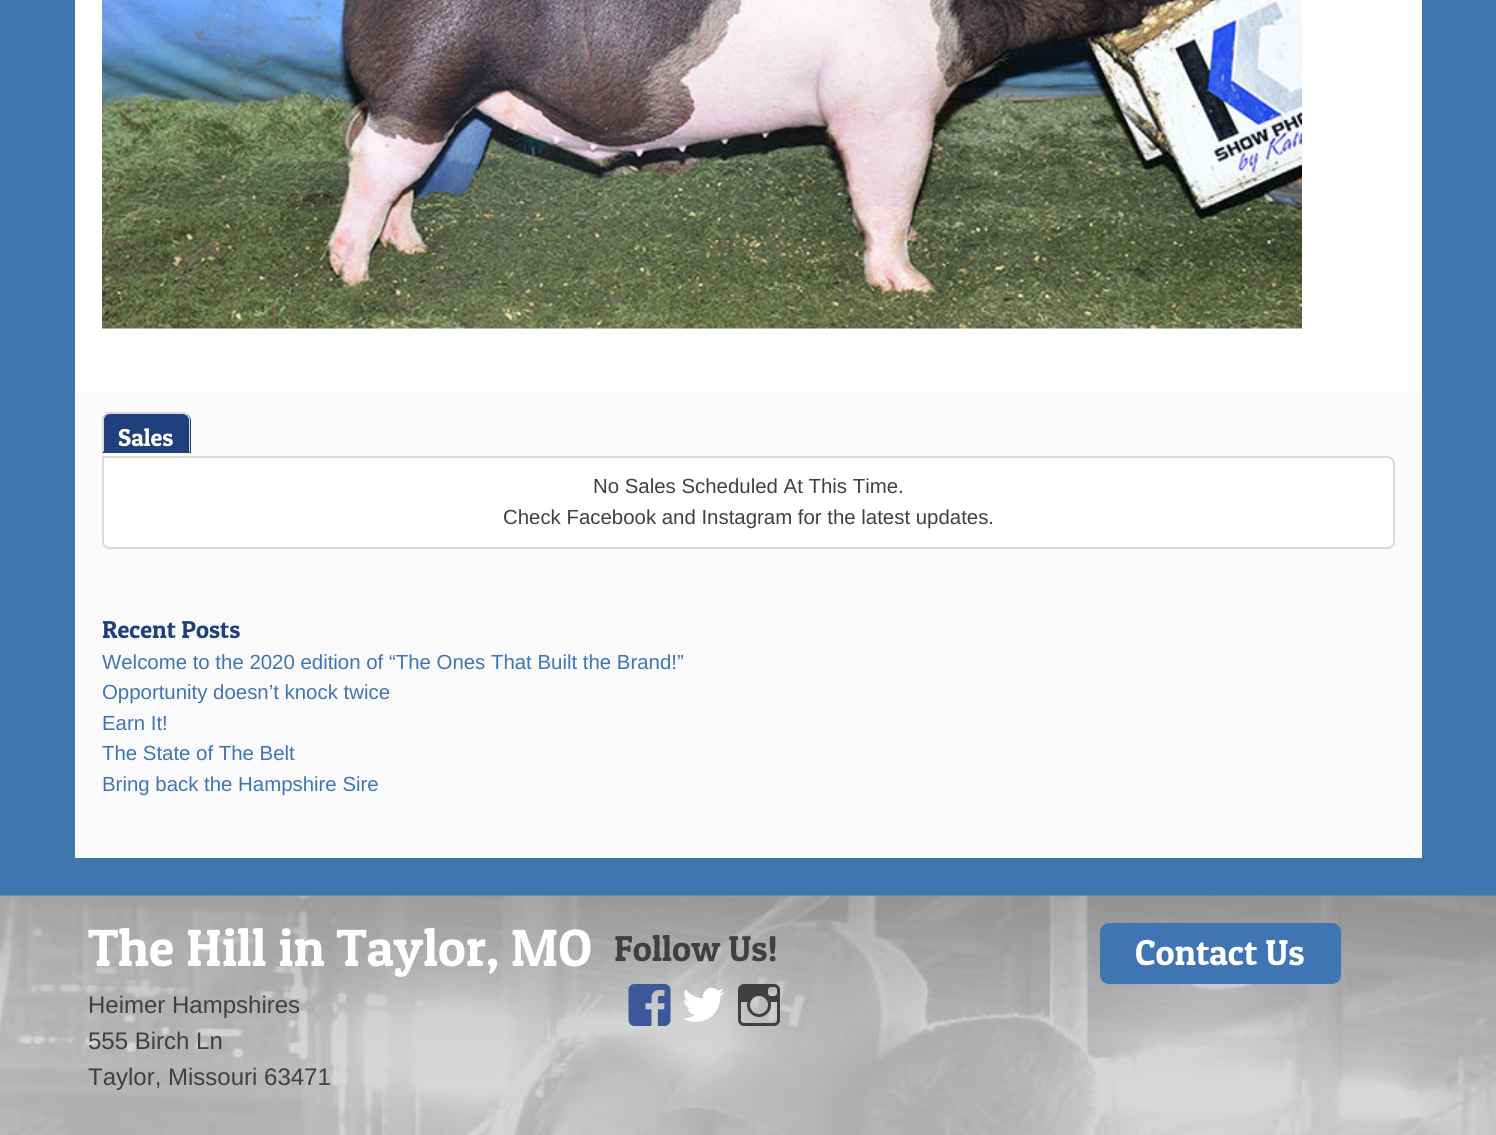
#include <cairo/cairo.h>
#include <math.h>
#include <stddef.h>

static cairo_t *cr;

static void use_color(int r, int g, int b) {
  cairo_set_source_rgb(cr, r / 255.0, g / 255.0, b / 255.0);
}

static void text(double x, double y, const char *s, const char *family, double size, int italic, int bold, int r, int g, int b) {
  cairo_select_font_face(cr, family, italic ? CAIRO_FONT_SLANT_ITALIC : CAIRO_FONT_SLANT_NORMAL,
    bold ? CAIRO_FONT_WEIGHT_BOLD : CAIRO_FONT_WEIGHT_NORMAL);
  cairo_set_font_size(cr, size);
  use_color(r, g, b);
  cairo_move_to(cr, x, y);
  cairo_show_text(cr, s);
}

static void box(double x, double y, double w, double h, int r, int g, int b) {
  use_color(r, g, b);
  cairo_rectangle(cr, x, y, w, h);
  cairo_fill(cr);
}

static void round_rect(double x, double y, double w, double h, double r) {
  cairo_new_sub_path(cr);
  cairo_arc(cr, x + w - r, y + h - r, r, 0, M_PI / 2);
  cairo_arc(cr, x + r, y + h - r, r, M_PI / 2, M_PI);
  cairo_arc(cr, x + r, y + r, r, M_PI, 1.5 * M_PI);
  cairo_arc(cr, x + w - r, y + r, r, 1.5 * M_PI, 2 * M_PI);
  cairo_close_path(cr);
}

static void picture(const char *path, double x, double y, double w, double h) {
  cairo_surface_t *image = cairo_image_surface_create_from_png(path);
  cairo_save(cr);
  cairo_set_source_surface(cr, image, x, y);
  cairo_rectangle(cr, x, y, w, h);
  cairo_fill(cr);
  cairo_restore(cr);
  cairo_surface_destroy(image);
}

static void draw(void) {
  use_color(63, 117, 173);
  cairo_paint(cr);
  box(75, 0, 1347, 392, 255, 255, 255);
  picture("img_01.png", 102, 0, 1200, 329);
  box(75, 392, 1347, 466, 250, 250, 250);
  use_color(32, 64, 125);
  cairo_new_path(cr);
  cairo_move_to(cr, 110, 413);
  cairo_line_to(cr, 183, 413);
  cairo_curve_to(cr, 187.5, 413, 191, 416.5, 191, 421);
  cairo_line_to(cr, 191, 453);
  cairo_line_to(cr, 102, 453);
  cairo_line_to(cr, 102, 421);
  cairo_curve_to(cr, 102, 416.5, 105.5, 413, 110, 413);
  cairo_close_path(cr);
  cairo_fill(cr);
  use_color(217, 217, 217);
  cairo_new_path(cr);
  cairo_move_to(cr, 110, 414);
  cairo_curve_to(cr, 108, 414, 106, 415, 105, 416);
  cairo_line_to(cr, 104, 415);
  cairo_line_to(cr, 107, 412);
  cairo_line_to(cr, 185, 412);
  cairo_line_to(cr, 188, 415);
  cairo_line_to(cr, 187, 416);
  cairo_curve_to(cr, 186, 415, 184, 414, 183, 414);
  cairo_close_path(cr);
  cairo_fill(cr);
  cairo_new_path(cr);
  cairo_move_to(cr, 188, 415);
  cairo_curve_to(cr, 189.5, 416, 190, 418, 190, 420);
  cairo_line_to(cr, 190, 452.5);
  cairo_line_to(cr, 189, 451.5);
  cairo_line_to(cr, 189, 420);
  cairo_curve_to(cr, 189, 418.5, 188, 417, 187, 416);
  cairo_close_path(cr);
  cairo_fill(cr);
  use_color(32, 64, 125);
  cairo_new_path(cr);
  cairo_move_to(cr, 190, 453);
  cairo_line_to(cr, 189, 452);
  cairo_line_to(cr, 104, 452);
  cairo_line_to(cr, 104, 451);
  cairo_line_to(cr, 102, 453);
  cairo_close_path(cr);
  cairo_fill(cr);
  use_color(217, 217, 217);
  cairo_new_path(cr);
  cairo_move_to(cr, 102, 453);
  cairo_line_to(cr, 104, 451);
  cairo_line_to(cr, 104, 420);
  cairo_curve_to(cr, 104, 418.5, 104.5, 417, 105.5, 416);
  cairo_line_to(cr, 104, 414.5);
  cairo_curve_to(cr, 102.5, 416, 102, 418, 102, 420);
  cairo_close_path(cr);
  cairo_fill(cr);
  use_color(255, 255, 255);
  cairo_new_path(cr);
  cairo_move_to(cr, 103, 457);
  cairo_line_to(cr, 1387, 457);
  cairo_curve_to(cr, 1391, 457, 1394, 460, 1394, 464);
  cairo_line_to(cr, 1394, 541);
  cairo_curve_to(cr, 1394, 545, 1391, 548, 1387, 548);
  cairo_line_to(cr, 110, 548);
  cairo_curve_to(cr, 106, 548, 103, 545, 103, 541);
  cairo_close_path(cr);
  cairo_fill_preserve(cr);
  use_color(217, 217, 217);
  cairo_stroke(cr);
  picture("img_02.png", 0, 895, 1496, 240);
  picture("img_03.png", 628, 984, 43, 42);
  picture("img_04.png", 683, 987, 42, 35);
  picture("img_05.png", 738, 984, 42, 42);
  use_color(63, 117, 179);
  round_rect(1100, 923, 241, 61, 9);
  cairo_fill(cr);
  text(118, 446, "Sales", "Patua One", 24.5, 0, 0, 255, 255, 255);
  text(593, 493, "No Sales Scheduled At This Time.", "Liberation Sans", 20.4, 0, 0, 64, 64, 64);
  text(503, 524, "Check Facebook and Instagram for the latest updates.", "Liberation Sans", 20.4, 0, 0, 64, 64, 64);
  text(102, 638, "Recent Posts", "Patua One", 24.5, 0, 0, 32, 64, 125);
  text(102, 669, "Welcome to the 2020 edition of “The Ones That Built the Brand!”", "Liberation Sans", 20.4, 0, 0, 63, 117, 179);
  text(102, 699, "Opportunity doesn’t knock twice", "Liberation Sans", 20.4, 0, 0, 63, 117, 179);
  text(102, 730, "Earn It!", "Liberation Sans", 20.4, 0, 0, 63, 117, 179);
  text(102, 760, "The State of The Belt", "Liberation Sans", 20.4, 0, 0, 63, 117, 179);
  text(102, 791, "Bring back the Hampshire Sire", "Liberation Sans", 20.4, 0, 0, 63, 117, 179);
  text(88, 966, "The Hill in Taylor, MO", "Patua One", 52.5, 0, 0, 255, 255, 255);
  text(88, 1013, "Heimer Hampshires", "Liberation Sans", 24, 0, 0, 64, 64, 64);
  text(88, 1049, "555 Birch Ln", "Liberation Sans", 24, 0, 0, 64, 64, 64);
  text(88, 1085, "Taylor, Missouri 63471", "Liberation Sans", 24, 0, 0, 64, 64, 64);
  text(614, 961, "Follow Us!", "Patua One", 36, 0, 0, 64, 64, 64);
  text(1135, 965, "Contact Us", "Patua One", 36, 0, 0, 255, 255, 255);
}

int main(void) {
  cairo_surface_t *surface = cairo_image_surface_create(CAIRO_FORMAT_RGB24, 1496, 1135);
  cr = cairo_create(surface);
  cairo_font_options_t *options = cairo_font_options_create();
  cairo_font_options_set_hint_metrics(options, CAIRO_HINT_METRICS_OFF);
  cairo_font_options_set_hint_style(options, CAIRO_HINT_STYLE_NONE);
  cairo_set_font_options(cr, options);
  cairo_set_miter_limit(cr, 4);
  draw();
  cairo_surface_write_to_png(surface, "out.png");
  cairo_font_options_destroy(options);
  cairo_destroy(cr);
  cairo_surface_destroy(surface);
  return 0;
}
